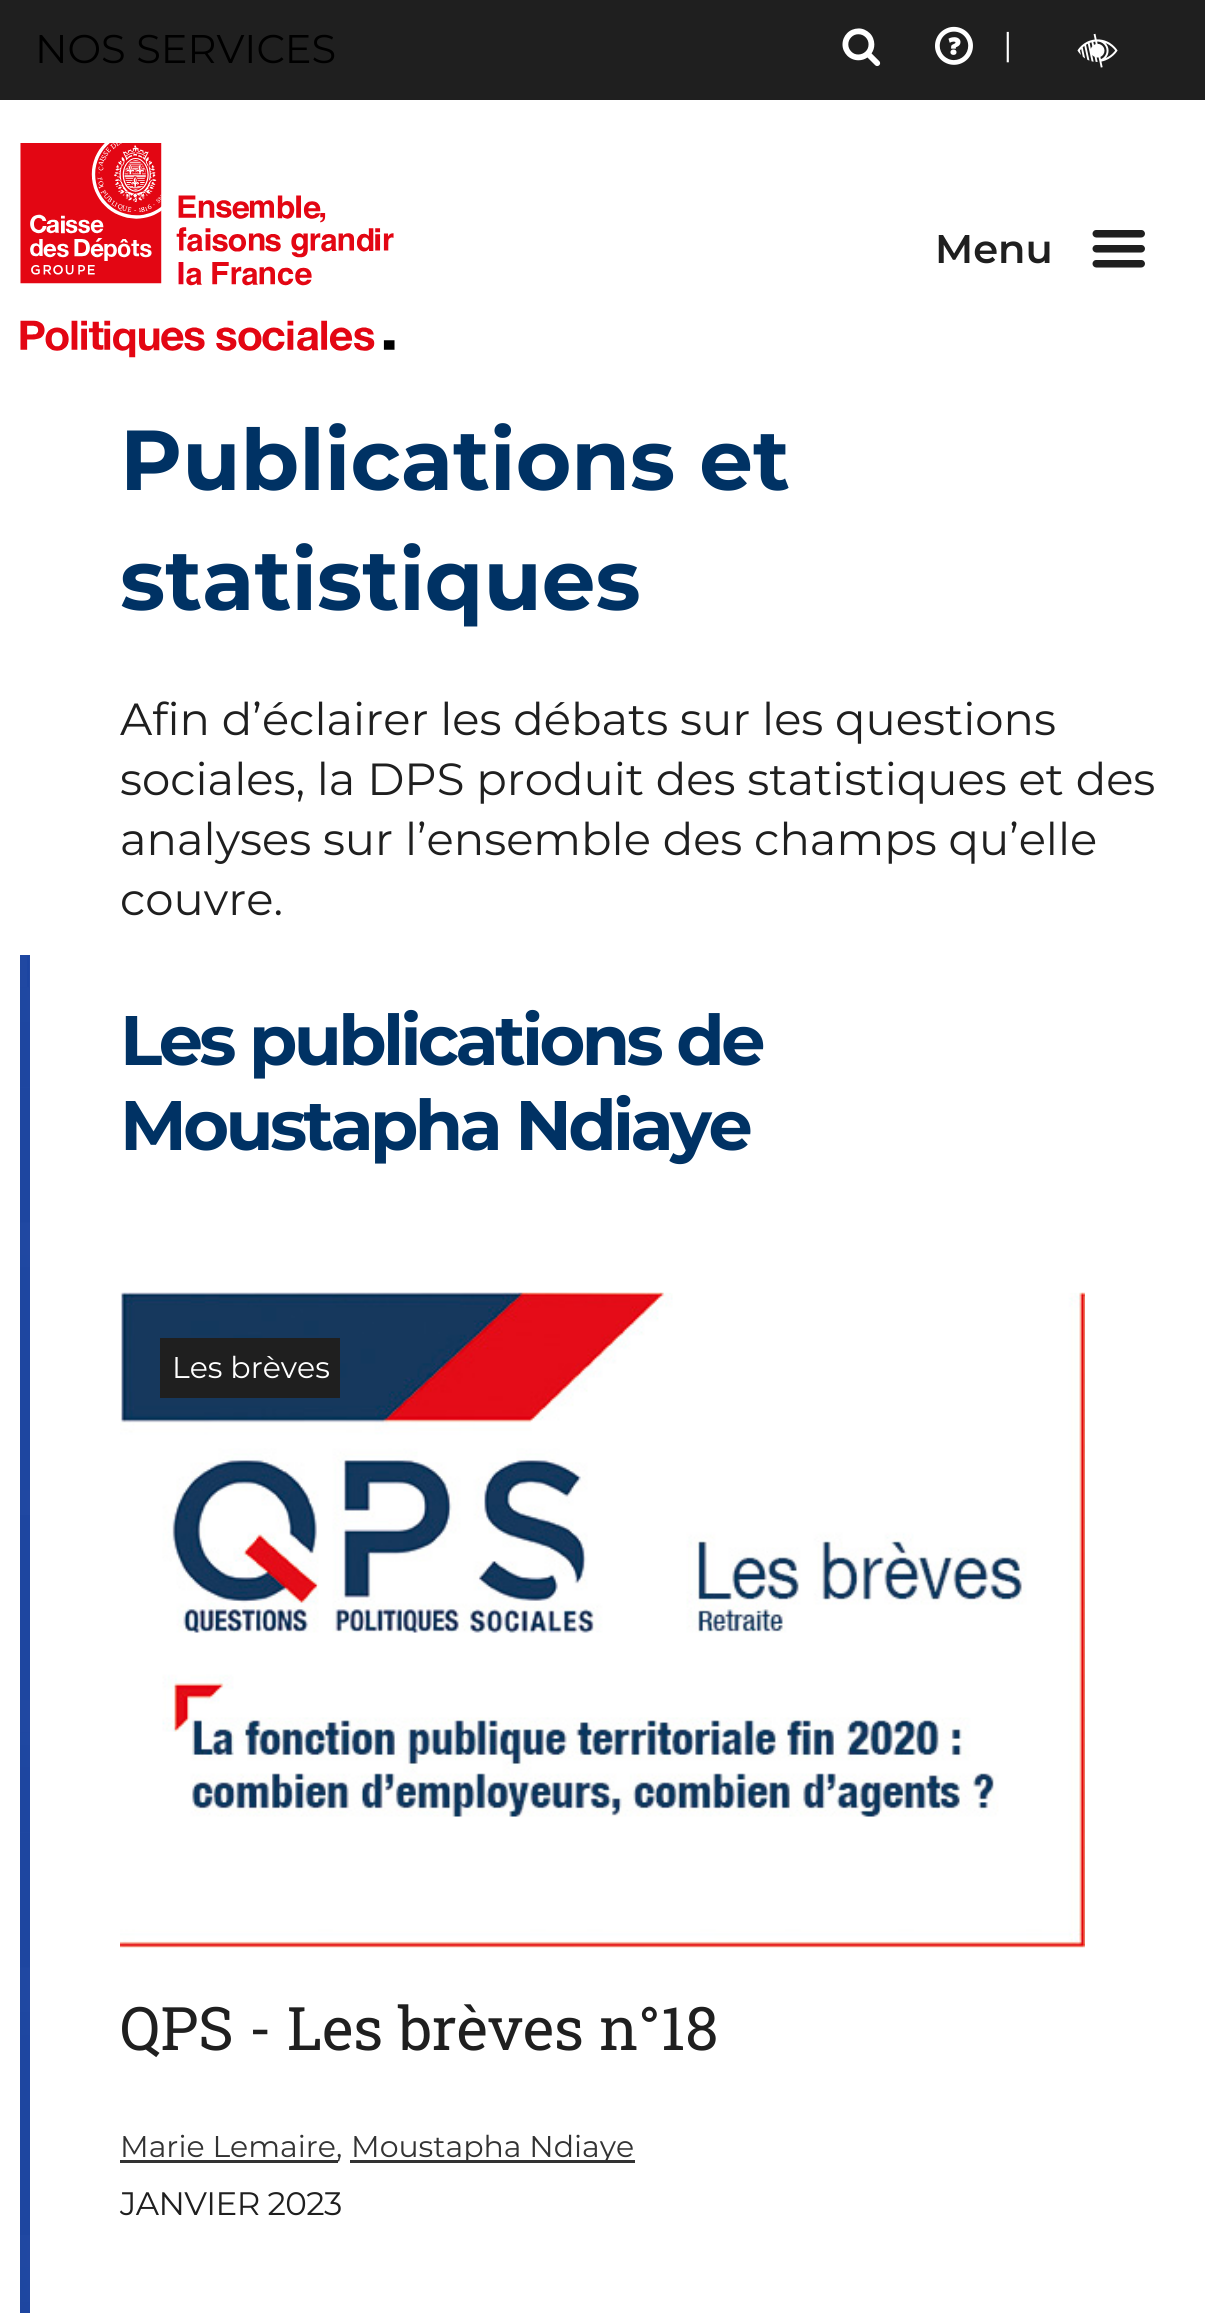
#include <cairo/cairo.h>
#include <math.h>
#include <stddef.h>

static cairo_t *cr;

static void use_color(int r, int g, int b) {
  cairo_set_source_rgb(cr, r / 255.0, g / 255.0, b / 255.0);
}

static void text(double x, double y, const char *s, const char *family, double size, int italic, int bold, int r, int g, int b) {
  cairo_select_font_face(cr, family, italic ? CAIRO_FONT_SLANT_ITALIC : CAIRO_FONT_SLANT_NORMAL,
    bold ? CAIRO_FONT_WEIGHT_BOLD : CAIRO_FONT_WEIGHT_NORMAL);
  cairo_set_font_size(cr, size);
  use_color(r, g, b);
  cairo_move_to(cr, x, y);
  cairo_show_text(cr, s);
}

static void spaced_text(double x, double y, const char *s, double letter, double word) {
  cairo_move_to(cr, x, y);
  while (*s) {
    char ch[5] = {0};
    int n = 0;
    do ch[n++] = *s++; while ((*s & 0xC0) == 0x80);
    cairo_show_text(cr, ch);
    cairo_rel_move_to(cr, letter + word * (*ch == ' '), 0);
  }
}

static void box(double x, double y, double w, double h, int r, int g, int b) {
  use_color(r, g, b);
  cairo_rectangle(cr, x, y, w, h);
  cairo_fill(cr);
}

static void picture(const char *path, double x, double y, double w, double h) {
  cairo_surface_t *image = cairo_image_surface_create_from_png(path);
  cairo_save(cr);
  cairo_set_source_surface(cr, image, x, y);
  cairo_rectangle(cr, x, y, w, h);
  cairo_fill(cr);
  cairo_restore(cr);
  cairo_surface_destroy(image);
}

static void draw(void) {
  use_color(255, 255, 255);
  cairo_paint(cr);
  box(0, 0, 1205, 100, 31, 31, 31);
  picture("img_01.png", 842, 28, 39, 39);
  picture("img_02.png", 935, 26, 38, 39);
  picture("img_03.png", 1077, 33, 41, 35);
  picture("img_04.png", 20, 143, 375, 215);
  picture("img_05.png", 1092, 230, 53, 38);
  picture("img_06.png", 20, 955, 10, 560);
  box(27, 956, 2, 31, 28, 69, 161);
  picture("img_07.png", 20, 1515, 10, 798);
  picture("img_08.png", 120, 1292, 965, 656);
  box(160, 1338, 180, 60, 31, 31, 31);
  box(120, 2160, 218, 3, 51, 51, 51);
  box(350, 2160, 285, 3, 51, 51, 51);
  text(35, 63, "NOS SERVICES", "Montserrat", 40, 0, 0, 0, 0, 0);
  text(1003, 56, "|", "Montserrat", 32.5, 0, 0, 255, 255, 255);
  text(935, 263, "Menu", "Montserrat SemiBold", 40, 0, 0, 31, 31, 31);
  text(120, 490, "Publications et", "Montserrat", 85, 0, 1, 0, 50, 100);
  text(120, 610, "statistiques", "Montserrat", 85, 0, 1, 0, 50, 100);
  text(120, 735, "Afin d’éclairer les débats sur les questions", "Montserrat", 45, 0, 0, 31, 31, 31);
  text(120, 795, "sociales, la DPS produit des statistiques et des", "Montserrat", 45, 0, 0, 31, 31, 31);
  text(120, 855, "analyses sur l’ensemble des champs qu’elle", "Montserrat", 45, 0, 0, 31, 31, 31);
  text(120, 915, "couvre.", "Montserrat", 45, 0, 0, 31, 31, 31);
  cairo_select_font_face(cr, "Montserrat", CAIRO_FONT_SLANT_NORMAL, CAIRO_FONT_WEIGHT_BOLD);
  cairo_set_font_size(cr, 70);
  use_color(0, 50, 100);
  spaced_text(120, 1065, "Les publications de", -3.6, 0);
  spaced_text(120, 1150, "Moustapha Ndiaye", -3.6, 0);
  text(172, 1378, "Les brèves", "Montserrat", 30, 0, 0, 255, 255, 255);
  text(120, 2050, "QPS - Les brèves n°18", "Roboto Slab", 60, 0, 0, 31, 31, 31);
  text(120, 2157, "Marie Lemaire,", "Montserrat", 30, 0, 0, 51, 51, 51);
  text(351, 2157, "Moustapha Ndiaye", "Montserrat", 30, 0, 0, 51, 51, 51);
  cairo_set_font_size(cr, 32.5);
  use_color(31, 31, 31);
  spaced_text(120, 2215, "JANVIER 2023", -0.6, 0);
}

int main(void) {
  cairo_surface_t *surface = cairo_image_surface_create(CAIRO_FORMAT_RGB24, 1205, 2313);
  cr = cairo_create(surface);
  cairo_font_options_t *options = cairo_font_options_create();
  cairo_font_options_set_hint_metrics(options, CAIRO_HINT_METRICS_OFF);
  cairo_font_options_set_hint_style(options, CAIRO_HINT_STYLE_NONE);
  cairo_set_font_options(cr, options);
  cairo_set_miter_limit(cr, 4);
  draw();
  cairo_surface_write_to_png(surface, "out.png");
  cairo_font_options_destroy(options);
  cairo_destroy(cr);
  cairo_surface_destroy(surface);
  return 0;
}
